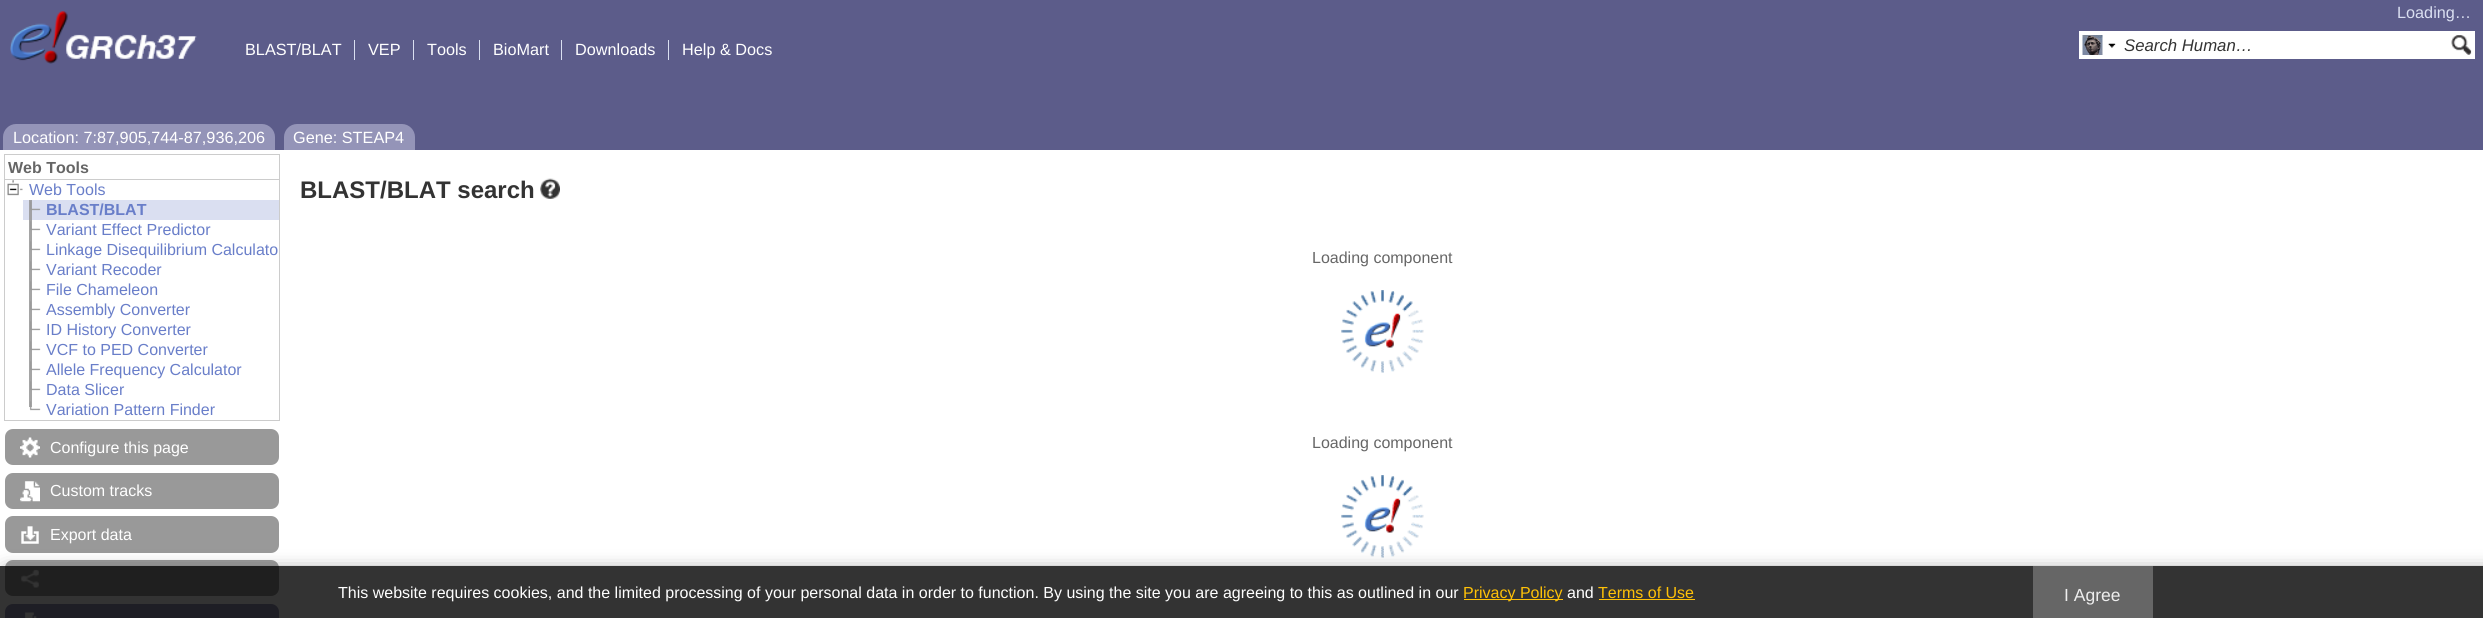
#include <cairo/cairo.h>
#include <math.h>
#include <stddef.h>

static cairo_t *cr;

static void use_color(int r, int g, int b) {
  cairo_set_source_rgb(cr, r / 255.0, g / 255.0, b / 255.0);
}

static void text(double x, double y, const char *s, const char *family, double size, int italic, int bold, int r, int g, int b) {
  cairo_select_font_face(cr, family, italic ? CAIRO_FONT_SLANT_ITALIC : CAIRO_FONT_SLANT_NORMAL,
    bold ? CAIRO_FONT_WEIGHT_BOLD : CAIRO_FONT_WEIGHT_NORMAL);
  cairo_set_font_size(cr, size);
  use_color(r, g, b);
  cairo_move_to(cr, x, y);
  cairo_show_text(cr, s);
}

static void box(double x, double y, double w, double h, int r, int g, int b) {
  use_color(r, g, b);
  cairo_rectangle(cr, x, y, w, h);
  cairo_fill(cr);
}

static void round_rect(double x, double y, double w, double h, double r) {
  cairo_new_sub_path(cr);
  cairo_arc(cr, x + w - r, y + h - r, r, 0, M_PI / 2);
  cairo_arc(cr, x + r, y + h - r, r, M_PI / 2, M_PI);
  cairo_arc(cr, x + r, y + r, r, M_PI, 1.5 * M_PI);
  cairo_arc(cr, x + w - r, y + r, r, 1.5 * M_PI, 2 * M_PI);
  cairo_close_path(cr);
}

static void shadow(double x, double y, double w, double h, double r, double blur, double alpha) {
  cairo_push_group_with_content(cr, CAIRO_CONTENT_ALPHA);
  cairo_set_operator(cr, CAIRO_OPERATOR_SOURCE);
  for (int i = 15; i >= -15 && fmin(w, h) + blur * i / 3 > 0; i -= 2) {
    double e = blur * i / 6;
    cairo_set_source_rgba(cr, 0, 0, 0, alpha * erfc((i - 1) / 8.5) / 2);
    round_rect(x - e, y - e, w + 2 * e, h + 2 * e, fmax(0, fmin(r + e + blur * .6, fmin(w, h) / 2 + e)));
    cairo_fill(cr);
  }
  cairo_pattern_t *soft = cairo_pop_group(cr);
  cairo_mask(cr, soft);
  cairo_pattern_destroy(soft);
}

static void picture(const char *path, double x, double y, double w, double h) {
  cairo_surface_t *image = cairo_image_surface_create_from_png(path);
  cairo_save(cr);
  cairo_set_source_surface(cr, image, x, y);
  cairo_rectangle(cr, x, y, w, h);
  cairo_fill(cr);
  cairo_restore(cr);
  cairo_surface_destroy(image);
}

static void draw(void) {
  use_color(255, 255, 255);
  cairo_paint(cr);
  box(0, 0, 2483, 150, 92, 92, 138);
  picture("img_01.png", 10, 11, 187, 53);
  box(354, 40, 1, 20, 218, 223, 241);
  box(413, 40, 1, 20, 218, 223, 241);
  box(479, 40, 1, 20, 218, 223, 241);
  box(561, 40, 1, 20, 218, 223, 241);
  box(668, 40, 1, 20, 218, 223, 241);
  box(2079, 31, 396, 28, 255, 255, 255);
  picture("img_02.png", 2082, 35, 21, 20);
  picture("img_03.png", 2108, 43, 8, 5);
  picture("img_04.png", 2451, 35, 21, 20);
  use_color(148, 148, 184);
  cairo_new_path(cr);
  cairo_move_to(cr, 16, 124);
  cairo_line_to(cr, 262, 124);
  cairo_curve_to(cr, 269, 124, 275, 130, 275, 137);
  cairo_line_to(cr, 275, 150);
  cairo_line_to(cr, 3, 150);
  cairo_line_to(cr, 3, 137);
  cairo_curve_to(cr, 3, 130, 9, 124, 16, 124);
  cairo_close_path(cr);
  cairo_fill(cr);
  cairo_new_path(cr);
  cairo_move_to(cr, 297, 124);
  cairo_line_to(cr, 402, 124);
  cairo_curve_to(cr, 409, 124, 415, 130, 415, 137);
  cairo_line_to(cr, 415, 150);
  cairo_line_to(cr, 284, 150);
  cairo_line_to(cr, 284, 137);
  cairo_curve_to(cr, 284, 130, 290, 124, 297, 124);
  cairo_close_path(cr);
  cairo_fill(cr);
  box(4, 154, 276, 1, 204, 204, 204);
  box(279, 154, 1, 25, 204, 204, 204);
  box(4, 154, 1, 25, 204, 204, 204);
  cairo_rectangle(cr, 4.5, 179.5, 275, 241);
  cairo_set_line_width(cr, 1);
  cairo_stroke(cr);
  picture("img_05.png", 12, 180, 2, 3);
  picture("img_06.png", 7, 181, 16, 15);
  box(23, 200, 256, 20, 218, 223, 241);
  box(29, 200, 3, 20, 161, 161, 164);
  picture("img_07.png", 30, 201, 11, 10);
  box(29, 220, 3, 187, 165, 165, 165);
  picture("img_08.png", 30, 221, 11, 10);
  picture("img_08.png", 30, 241, 11, 10);
  picture("img_08.png", 30, 261, 11, 10);
  picture("img_08.png", 30, 281, 11, 10);
  picture("img_08.png", 30, 301, 11, 10);
  picture("img_08.png", 30, 321, 11, 10);
  picture("img_08.png", 30, 341, 11, 10);
  picture("img_08.png", 30, 361, 11, 10);
  picture("img_08.png", 30, 381, 11, 10);
  picture("img_09.png", 29, 401, 12, 10);
  use_color(153, 153, 153);
  round_rect(5, 429, 274, 36, 8);
  cairo_fill(cr);
  picture("img_10.png", 20, 437, 20, 21);
  round_rect(5, 473, 274, 36, 8);
  cairo_fill(cr);
  picture("img_11.png", 20, 481, 20, 21);
  round_rect(5, 516, 274, 37, 8);
  cairo_fill(cr);
  picture("img_12.png", 21, 526, 18, 18);
  round_rect(5, 560, 274, 36, 8);
  cairo_fill(cr);
  picture("img_13.png", 21, 569, 18, 19);
  use_color(148, 148, 184);
  round_rect(5, 604, 274, 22, 8);
  cairo_fill(cr);
  picture("img_14.png", 24, 612, 13, 6);
  picture("img_15.png", 540, 178, 20, 21);
  picture("img_16.png", 1341, 290, 83, 83);
  picture("img_17.png", 1341, 475, 83, 83);
  cairo_save(cr);
  cairo_set_fill_rule(cr, CAIRO_FILL_RULE_EVEN_ODD);
  cairo_new_path(cr);
  cairo_move_to(cr, 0, 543);
  cairo_line_to(cr, 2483, 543);
  cairo_line_to(cr, 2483, 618);
  cairo_line_to(cr, 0, 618);
  cairo_close_path(cr);
  cairo_move_to(cr, 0, 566);
  cairo_line_to(cr, 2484, 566);
  cairo_line_to(cr, 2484, 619);
  cairo_line_to(cr, 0, 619);
  cairo_close_path(cr);
  cairo_clip(cr);
  use_color(102, 102, 102);
  shadow(6, 573, 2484, 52, 0, 9.5, 1);
  cairo_restore(cr);
  cairo_set_source_rgba(cr, 0, 0, 0, 0.8);
  cairo_rectangle(cr, 0, 566, 2483, 52);
  cairo_fill(cr);
  box(1464, 599, 99, 1, 255, 193, 7);
  box(1599, 599, 96, 1, 255, 193, 7);
  box(2033, 566, 120, 52, 102, 102, 102);
  text(2397, 18, "Loading…", "Liberation Sans", 16.25, 0, 0, 218, 223, 241);
  text(245, 55, "BLAST/BLAT", "Liberation Sans", 16.25, 0, 0, 255, 255, 255);
  text(368, 55, "VEP", "Liberation Sans", 16.25, 0, 0, 255, 255, 255);
  text(427, 55, "Tools", "Liberation Sans", 16.25, 0, 0, 255, 255, 255);
  text(493, 55, "BioMart", "Liberation Sans", 16.25, 0, 0, 255, 255, 255);
  text(575, 55, "Downloads", "Liberation Sans", 16.25, 0, 0, 255, 255, 255);
  text(682, 55, "Help & Docs", "Liberation Sans", 16.25, 0, 0, 255, 255, 255);
  text(2124, 51, "Search Human…", "Liberation Sans", 16.75, 1, 0, 51, 51, 51);
  text(13, 143, "Location: 7:87,905,744-87,936,206", "Liberation Sans", 16.25, 0, 0, 255, 255, 255);
  text(293, 143, "Gene: STEAP4", "Liberation Sans", 16.25, 0, 0, 255, 255, 255);
  text(8, 173, "Web Tools", "Liberation Sans", 16, 0, 1, 102, 102, 102);
  text(29, 195, "Web Tools", "Liberation Sans", 16, 0, 0, 105, 126, 201);
  text(46, 215, "BLAST/BLAT", "Liberation Sans", 16, 0, 1, 105, 126, 201);
  text(46, 235, "Variant Effect Predictor", "Liberation Sans", 16, 0, 0, 105, 126, 201);
  text(46, 255, "Linkage Disequilibrium Calculato", "Liberation Sans", 16, 0, 0, 105, 126, 201);
  text(46, 275, "Variant Recoder", "Liberation Sans", 16, 0, 0, 105, 126, 201);
  text(46, 295, "File Chameleon", "Liberation Sans", 16, 0, 0, 105, 126, 201);
  text(46, 315, "Assembly Converter", "Liberation Sans", 16, 0, 0, 105, 126, 201);
  text(46, 335, "ID History Converter", "Liberation Sans", 16, 0, 0, 105, 126, 201);
  text(46, 355, "VCF to PED Converter", "Liberation Sans", 16, 0, 0, 105, 126, 201);
  text(46, 375, "Allele Frequency Calculator", "Liberation Sans", 16, 0, 0, 105, 126, 201);
  text(46, 395, "Data Slicer", "Liberation Sans", 16, 0, 0, 105, 126, 201);
  text(46, 415, "Variation Pattern Finder", "Liberation Sans", 16, 0, 0, 105, 126, 201);
  text(50, 453, "Configure this page", "Liberation Sans", 16, 0, 0, 255, 255, 255);
  text(50, 496, "Custom tracks", "Liberation Sans", 16, 0, 0, 255, 255, 255);
  text(50, 540, "Export data", "Liberation Sans", 16, 0, 0, 255, 255, 255);
  text(300, 198, "BLAST/BLAT search", "Liberation Sans", 24, 0, 1, 51, 51, 51);
  text(1312, 263, "Loading component", "Liberation Sans", 16, 0, 0, 102, 102, 102);
  text(1312, 448, "Loading component", "Liberation Sans", 16, 0, 0, 102, 102, 102);
  text(338, 598, "This website requires cookies, and the limited processing of your personal data in order to function. By using the site you are agreeing to this as outlined in our", "Liberation Sans", 16, 0, 0, 255, 255, 255);
  text(1463, 598, "Privacy Policy", "Liberation Sans", 16, 0, 0, 255, 193, 7);
  text(1567, 598, "and", "Liberation Sans", 16, 0, 0, 255, 255, 255);
  text(1598, 598, "Terms of Use", "Liberation Sans", 16, 0, 0, 255, 193, 7);
  text(2064, 601, "I Agree", "Liberation Sans", 17.5, 0, 0, 238, 238, 238);
}

int main(void) {
  cairo_surface_t *surface = cairo_image_surface_create(CAIRO_FORMAT_RGB24, 2483, 618);
  cr = cairo_create(surface);
  cairo_font_options_t *options = cairo_font_options_create();
  cairo_font_options_set_hint_metrics(options, CAIRO_HINT_METRICS_OFF);
  cairo_font_options_set_hint_style(options, CAIRO_HINT_STYLE_NONE);
  cairo_set_font_options(cr, options);
  cairo_set_miter_limit(cr, 4);
  draw();
  cairo_surface_write_to_png(surface, "out.png");
  cairo_font_options_destroy(options);
  cairo_destroy(cr);
  cairo_surface_destroy(surface);
  return 0;
}
